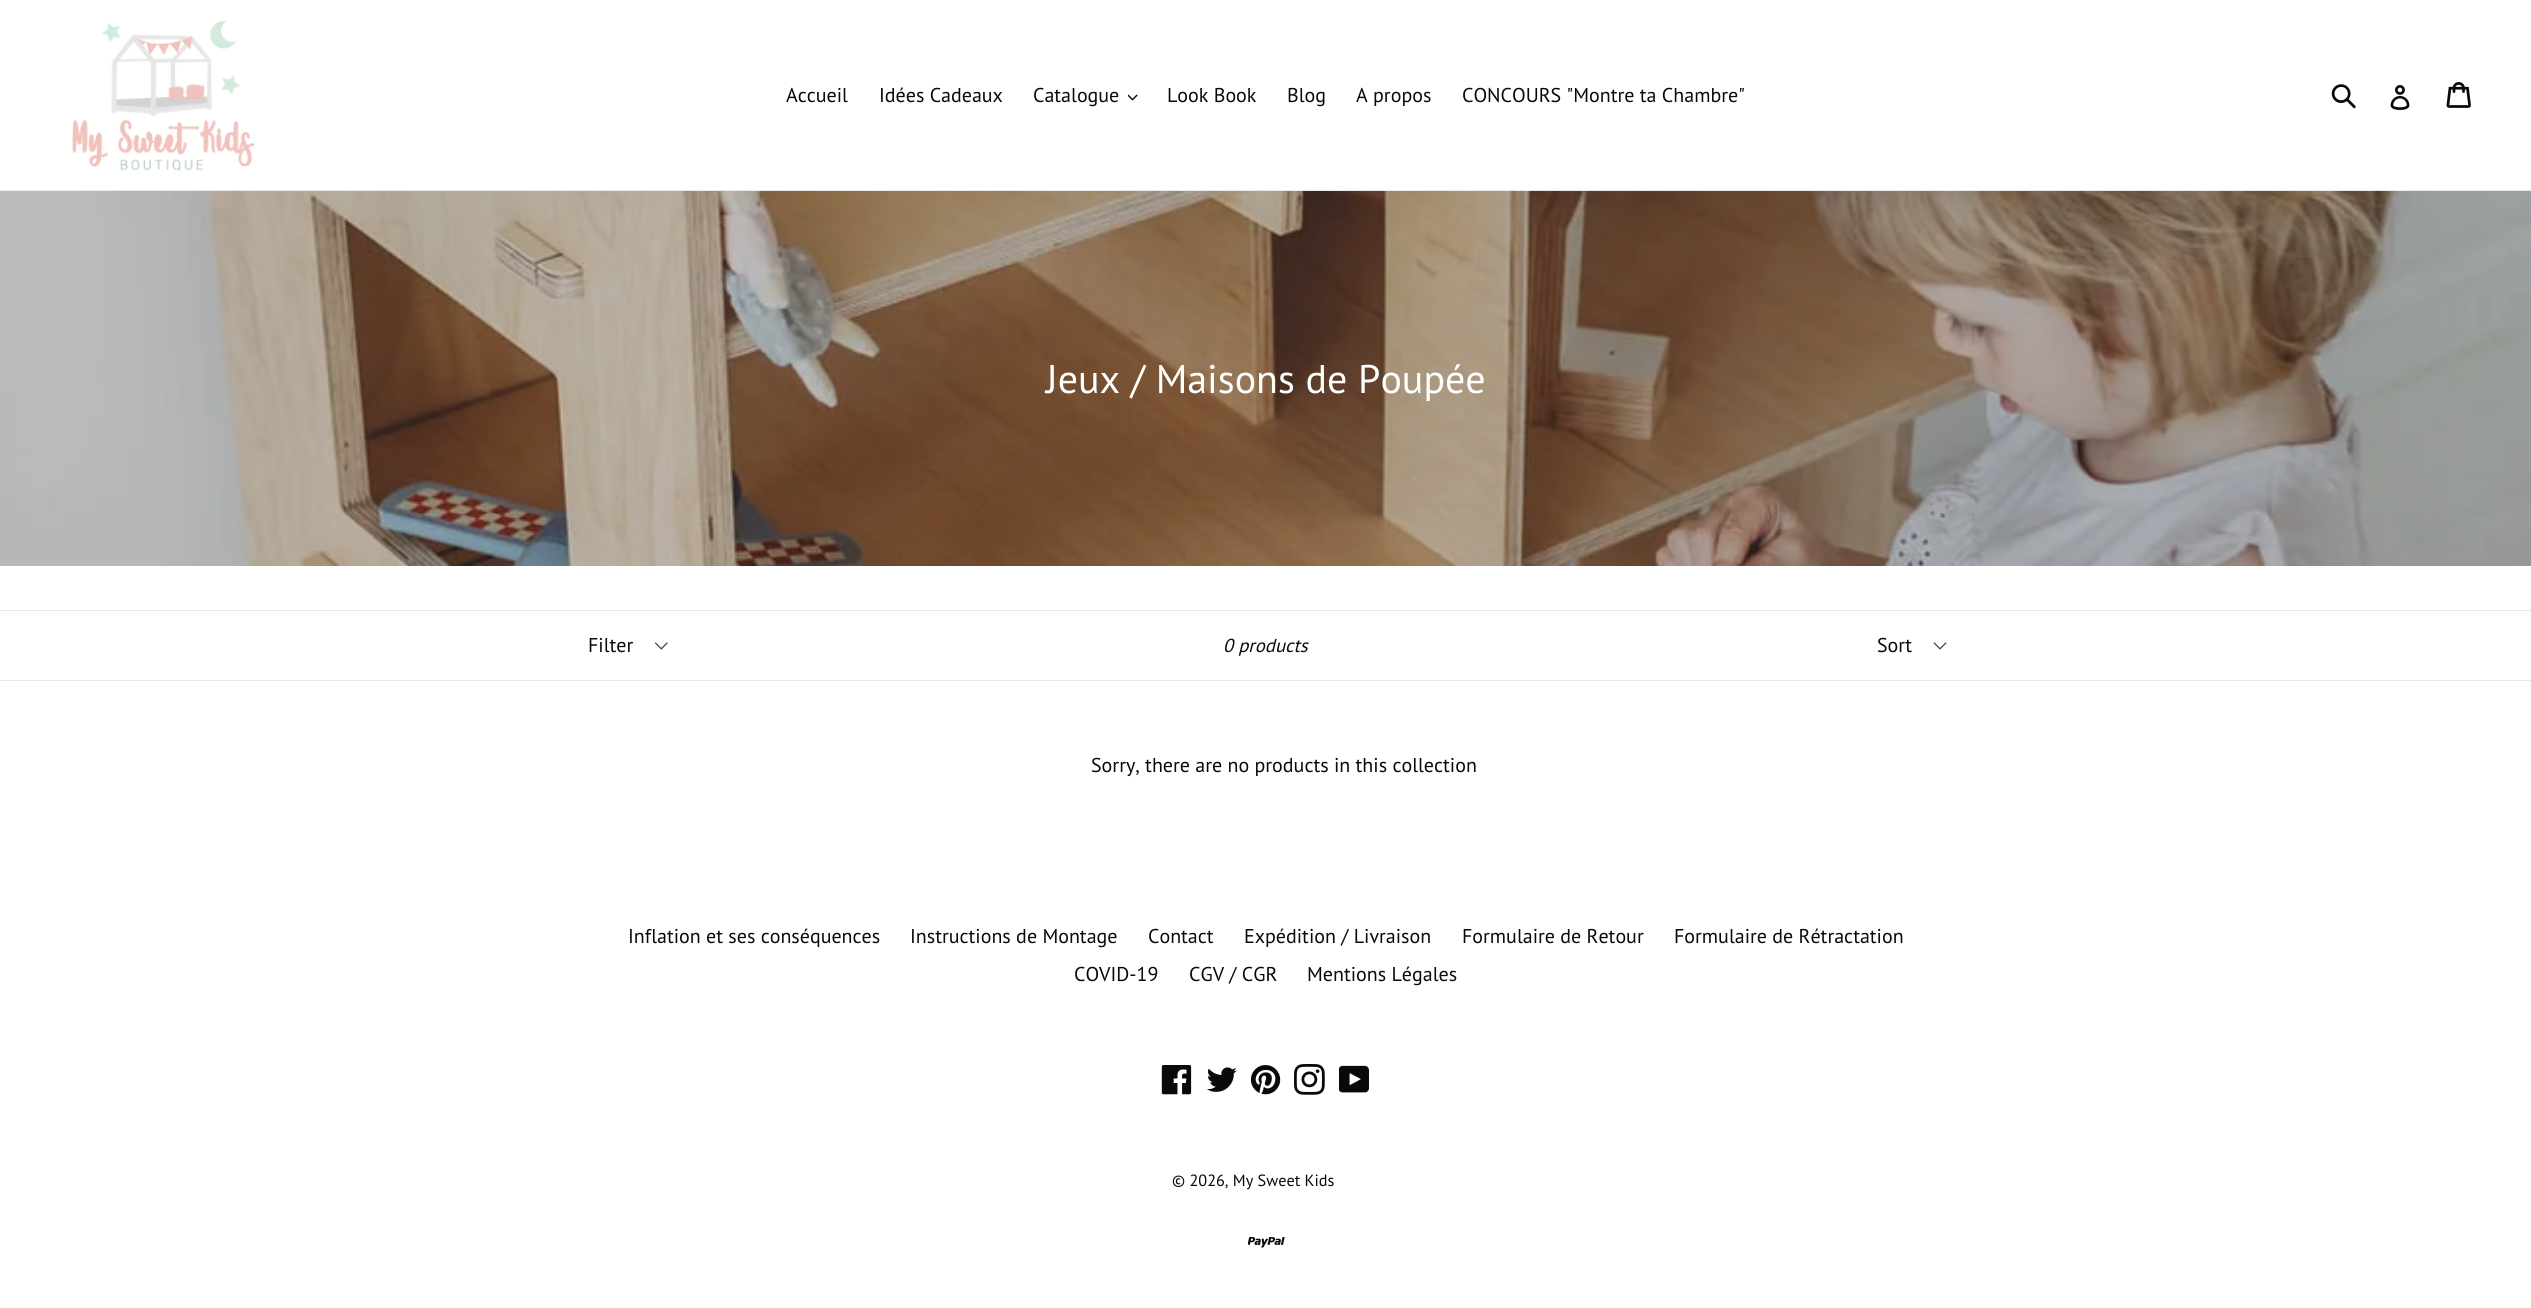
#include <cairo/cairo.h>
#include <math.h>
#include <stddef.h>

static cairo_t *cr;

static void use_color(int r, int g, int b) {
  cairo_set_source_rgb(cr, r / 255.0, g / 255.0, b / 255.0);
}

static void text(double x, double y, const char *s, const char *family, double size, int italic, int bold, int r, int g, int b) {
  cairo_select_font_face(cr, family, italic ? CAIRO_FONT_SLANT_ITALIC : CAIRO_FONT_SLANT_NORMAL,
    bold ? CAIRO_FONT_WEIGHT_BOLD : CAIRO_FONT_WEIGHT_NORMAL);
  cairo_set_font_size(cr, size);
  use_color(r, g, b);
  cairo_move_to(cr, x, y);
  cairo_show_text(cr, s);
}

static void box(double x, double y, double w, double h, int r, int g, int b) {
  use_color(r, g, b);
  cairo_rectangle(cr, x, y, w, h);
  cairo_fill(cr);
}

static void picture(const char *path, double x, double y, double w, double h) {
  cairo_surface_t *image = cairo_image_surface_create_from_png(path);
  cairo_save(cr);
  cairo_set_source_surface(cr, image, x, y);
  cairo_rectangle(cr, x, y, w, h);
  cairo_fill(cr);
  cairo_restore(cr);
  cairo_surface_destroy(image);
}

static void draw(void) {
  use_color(255, 255, 255);
  cairo_paint(cr);
  box(0, 190, 2531, 1, 232, 233, 235);
  picture("img_01.png", 72, 20, 183, 151);
  picture("img_02.png", 1128, 94, 10, 7);
  picture("img_03.png", 2331, 84, 25, 25);
  picture("img_04.png", 2390, 85, 20, 25);
  picture("img_05.png", 2446, 82, 25, 26);
  picture("img_06.png", 0, 191, 2531, 375);
  box(0, 610, 2531, 1, 232, 233, 235);
  box(0, 680, 2531, 1, 232, 233, 235);
  picture("img_07.png", 654, 642, 14, 8);
  picture("img_08.png", 1933, 642, 14, 8);
  picture("img_09.png", 1161, 1065, 31, 30);
  picture("img_10.png", 1207, 1067, 30, 25);
  picture("img_11.png", 1250, 1065, 31, 30);
  picture("img_12.png", 1294, 1064, 31, 31);
  picture("img_13.png", 1339, 1065, 30, 28);
  picture("img_14.png", 1248, 1237, 37, 11);
  text(786, 102, "Accueil", "PT Sans", 20, 0, 0, 9, 9, 9);
  text(879, 102, "Idées Cadeaux", "PT Sans", 20, 0, 0, 9, 9, 9);
  text(1033, 102, "Catalogue", "PT Sans", 20, 0, 0, 9, 9, 9);
  text(1167, 102, "Look Book", "PT Sans", 20, 0, 0, 9, 9, 9);
  text(1287, 102, "Blog", "PT Sans", 20, 0, 0, 9, 9, 9);
  text(1356, 102, "A propos", "PT Sans", 20, 0, 0, 9, 9, 9);
  text(1462, 102, "CONCOURS \"Montre ta Chambre\"", "PT Sans", 20, 0, 0, 9, 9, 9);
  text(1046, 393, "Jeux / Maisons de Poupée", "PT Sans", 40, 0, 0, 255, 255, 255);
  text(588, 652, "Filter", "PT Sans", 20, 0, 0, 9, 9, 9);
  text(1223, 652, "0 products", "PT Sans", 18.75, 1, 0, 9, 9, 9);
  text(1877, 652, "Sort", "PT Sans", 20, 0, 0, 9, 9, 9);
  text(1091, 772, "Sorry, there are no products in this collection", "PT Sans", 20, 0, 0, 9, 9, 9);
  text(628, 943, "Inflation et ses conséquences", "PT Sans", 20, 0, 0, 9, 9, 9);
  text(910, 943, "Instructions de Montage", "PT Sans", 20, 0, 0, 9, 9, 9);
  text(1148, 943, "Contact", "PT Sans", 20, 0, 0, 9, 9, 9);
  text(1244, 943, "Expédition / Livraison", "PT Sans", 20, 0, 0, 9, 9, 9);
  text(1462, 943, "Formulaire de Retour", "PT Sans", 20, 0, 0, 9, 9, 9);
  text(1674, 943, "Formulaire de Rétractation", "PT Sans", 20, 0, 0, 9, 9, 9);
  text(1074, 981, "COVID-19", "PT Sans", 20, 0, 0, 9, 9, 9);
  text(1189, 981, "CGV / CGR", "PT Sans", 20, 0, 0, 9, 9, 9);
  text(1307, 981, "Mentions Légales", "PT Sans", 20, 0, 0, 9, 9, 9);
  text(1172, 1186, "© 2026, My Sweet Kids", "PT Sans", 16.25, 0, 0, 9, 9, 9);
}

int main(void) {
  cairo_surface_t *surface = cairo_image_surface_create(CAIRO_FORMAT_RGB24, 2531, 1308);
  cr = cairo_create(surface);
  cairo_font_options_t *options = cairo_font_options_create();
  cairo_font_options_set_hint_metrics(options, CAIRO_HINT_METRICS_OFF);
  cairo_font_options_set_hint_style(options, CAIRO_HINT_STYLE_NONE);
  cairo_set_font_options(cr, options);
  cairo_set_miter_limit(cr, 4);
  draw();
  cairo_surface_write_to_png(surface, "out.png");
  cairo_font_options_destroy(options);
  cairo_destroy(cr);
  cairo_surface_destroy(surface);
  return 0;
}
